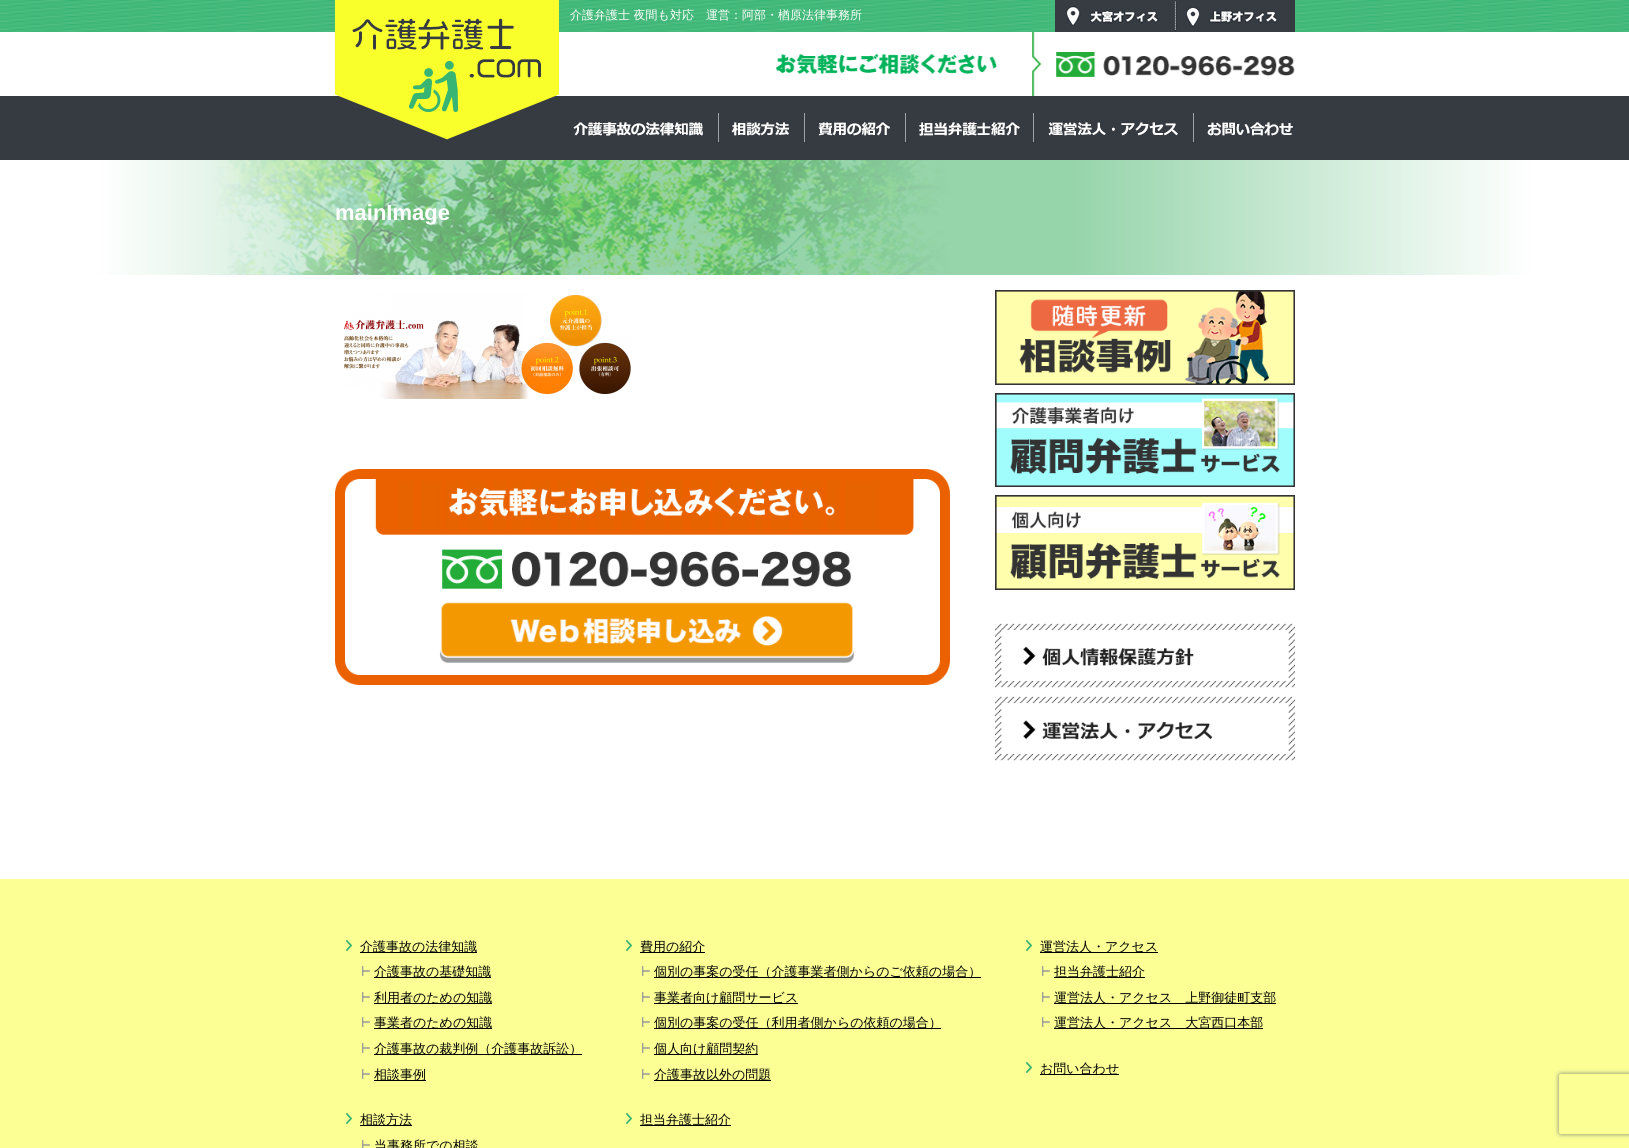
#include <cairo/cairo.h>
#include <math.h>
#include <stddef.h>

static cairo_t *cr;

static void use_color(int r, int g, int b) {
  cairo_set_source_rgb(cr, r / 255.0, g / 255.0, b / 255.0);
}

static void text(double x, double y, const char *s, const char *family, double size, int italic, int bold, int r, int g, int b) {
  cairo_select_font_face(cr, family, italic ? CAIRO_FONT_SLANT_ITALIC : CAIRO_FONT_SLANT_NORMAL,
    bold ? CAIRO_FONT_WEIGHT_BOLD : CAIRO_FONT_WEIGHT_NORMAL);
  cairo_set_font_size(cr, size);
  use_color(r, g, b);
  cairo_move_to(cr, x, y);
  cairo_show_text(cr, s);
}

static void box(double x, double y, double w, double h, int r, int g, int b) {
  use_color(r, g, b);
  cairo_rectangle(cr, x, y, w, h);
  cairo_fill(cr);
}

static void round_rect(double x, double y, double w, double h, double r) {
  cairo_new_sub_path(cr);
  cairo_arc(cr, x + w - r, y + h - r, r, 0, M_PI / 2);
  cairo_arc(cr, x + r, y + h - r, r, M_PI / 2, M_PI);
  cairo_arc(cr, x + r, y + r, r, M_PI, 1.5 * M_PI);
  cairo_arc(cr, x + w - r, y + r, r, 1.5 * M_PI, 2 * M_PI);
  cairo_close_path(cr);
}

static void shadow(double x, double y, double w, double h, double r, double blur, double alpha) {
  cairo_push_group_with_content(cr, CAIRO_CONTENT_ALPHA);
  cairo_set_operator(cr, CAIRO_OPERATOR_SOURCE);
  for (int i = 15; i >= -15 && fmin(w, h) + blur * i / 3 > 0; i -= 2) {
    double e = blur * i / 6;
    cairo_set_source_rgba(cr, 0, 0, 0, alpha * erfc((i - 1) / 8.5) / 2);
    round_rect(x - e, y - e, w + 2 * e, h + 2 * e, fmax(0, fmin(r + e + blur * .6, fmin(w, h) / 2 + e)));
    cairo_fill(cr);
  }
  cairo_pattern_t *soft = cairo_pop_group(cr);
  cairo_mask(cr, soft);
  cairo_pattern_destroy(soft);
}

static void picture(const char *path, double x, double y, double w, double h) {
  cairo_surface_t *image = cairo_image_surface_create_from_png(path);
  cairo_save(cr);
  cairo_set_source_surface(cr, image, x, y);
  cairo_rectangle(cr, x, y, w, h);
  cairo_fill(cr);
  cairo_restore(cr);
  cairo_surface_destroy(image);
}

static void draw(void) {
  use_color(255, 255, 255);
  cairo_paint(cr);
  picture("img_01.png", 0, 0, 1629, 275);
  picture("img_02.png", 335, 0, 224, 140);
  picture("img_03.png", 1055, 0, 120, 32);
  picture("img_04.png", 1175, 0, 120, 32);
  picture("img_05.png", 776, 32, 519, 64);
  picture("img_06.png", 573, 122, 130, 14);
  picture("img_07.png", 718, 113, 71, 29);
  picture("img_08.png", 804, 113, 86, 29);
  picture("img_09.png", 905, 113, 115, 29);
  picture("img_10.png", 1033, 113, 145, 29);
  picture("img_11.png", 1193, 113, 100, 29);
  picture("img_12.png", 344, 294, 287, 105);
  picture("img_13.png", 335, 469, 615, 216);
  picture("img_14.png", 439, 602, 415, 61);
  picture("img_15.png", 995, 290, 300, 95);
  picture("img_16.png", 995, 393, 300, 94);
  picture("img_17.png", 995, 495, 300, 95);
  picture("img_18.png", 995, 623, 300, 65);
  picture("img_19.png", 995, 696, 300, 65);
  box(0, 879, 1629, 269, 251, 255, 148);
  picture("img_20.png", 346, 940, 6, 11);
  box(360, 952, 117, 1, 0, 0, 0);
  picture("img_21.png", 362, 966, 8, 10);
  box(374, 977, 117, 1, 0, 0, 0);
  picture("img_21.png", 362, 992, 8, 10);
  box(374, 1003, 118, 1, 0, 0, 0);
  picture("img_21.png", 362, 1017, 8, 10);
  box(374, 1028, 118, 1, 0, 0, 0);
  picture("img_21.png", 362, 1043, 8, 10);
  box(374, 1054, 208, 1, 0, 0, 0);
  picture("img_21.png", 362, 1069, 8, 10);
  box(374, 1080, 52, 1, 0, 0, 0);
  picture("img_20.png", 346, 1113, 6, 11);
  box(360, 1125, 52, 1, 0, 0, 0);
  picture("img_22.png", 362, 1140, 8, 8);
  picture("img_20.png", 626, 940, 6, 11);
  box(640, 952, 65, 1, 0, 0, 0);
  picture("img_21.png", 642, 966, 8, 10);
  box(654, 977, 327, 1, 0, 0, 0);
  picture("img_21.png", 642, 992, 8, 10);
  box(654, 1003, 144, 1, 0, 0, 0);
  picture("img_21.png", 642, 1017, 8, 10);
  box(654, 1028, 287, 1, 0, 0, 0);
  picture("img_21.png", 642, 1043, 8, 10);
  box(654, 1054, 104, 1, 0, 0, 0);
  picture("img_21.png", 642, 1069, 8, 10);
  box(654, 1080, 117, 1, 0, 0, 0);
  picture("img_20.png", 626, 1113, 6, 11);
  box(640, 1125, 91, 1, 0, 0, 0);
  picture("img_20.png", 1026, 940, 6, 11);
  box(1040, 952, 118, 1, 0, 0, 0);
  picture("img_21.png", 1042, 966, 8, 10);
  box(1054, 977, 91, 1, 0, 0, 0);
  picture("img_21.png", 1042, 992, 8, 10);
  box(1054, 1003, 222, 1, 0, 0, 0);
  picture("img_21.png", 1042, 1017, 8, 10);
  box(1054, 1028, 209, 1, 0, 0, 0);
  picture("img_20.png", 1026, 1062, 6, 11);
  box(1040, 1074, 79, 1, 0, 0, 0);
  cairo_save(cr);
  cairo_set_fill_rule(cr, CAIRO_FILL_RULE_EVEN_ODD);
  cairo_new_path(cr);
  cairo_move_to(cr, 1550, 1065);
  cairo_line_to(cr, 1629, 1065);
  cairo_line_to(cr, 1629, 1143);
  cairo_line_to(cr, 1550, 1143);
  cairo_close_path(cr);
  cairo_move_to(cr, 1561, 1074);
  cairo_line_to(cr, 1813, 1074);
  cairo_curve_to(cr, 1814, 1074, 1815, 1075, 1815, 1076);
  cairo_line_to(cr, 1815, 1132);
  cairo_curve_to(cr, 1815, 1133, 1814, 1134, 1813, 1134);
  cairo_line_to(cr, 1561, 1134);
  cairo_curve_to(cr, 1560, 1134, 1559, 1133, 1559, 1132);
  cairo_line_to(cr, 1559, 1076);
  cairo_curve_to(cr, 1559, 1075, 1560, 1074, 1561, 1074);
  cairo_close_path(cr);
  cairo_clip(cr);
  use_color(128, 128, 128);
  shadow(1559, 1074, 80, 60, 2, 2.5, 1);
  cairo_restore(cr);
  text(570, 19, "介護弁護士 夜間も対応　運営：阿部・楢原法律事務所", "WenQuanYi Zen Hei Medium", 12, 0, 0, 255, 255, 255);
  text(335, 220, "mainImage", "Liberation Sans", 22, 0, 1, 255, 255, 255);
  text(360, 951, "介護事故の法律知識", "WenQuanYi Zen Hei Medium", 13, 0, 0, 0, 0, 0);
  text(374, 976, "介護事故の基礎知識", "WenQuanYi Zen Hei Medium", 13, 0, 0, 0, 0, 0);
  text(374, 1002, "利用者のための知識", "WenQuanYi Zen Hei Medium", 13, 0, 0, 0, 0, 0);
  text(374, 1027, "事業者のための知識", "WenQuanYi Zen Hei Medium", 13, 0, 0, 0, 0, 0);
  text(374, 1053, "介護事故の裁判例（介護事故訴訟）", "WenQuanYi Zen Hei Medium", 13, 0, 0, 0, 0, 0);
  text(374, 1079, "相談事例", "WenQuanYi Zen Hei Medium", 13, 0, 0, 0, 0, 0);
  text(360, 1124, "相談方法", "WenQuanYi Zen Hei Medium", 13, 0, 0, 0, 0, 0);
  text(374, 1150, "当事務所での相談", "WenQuanYi Zen Hei Medium", 13, 0, 0, 0, 0, 0);
  text(640, 951, "費用の紹介", "WenQuanYi Zen Hei Medium", 13, 0, 0, 0, 0, 0);
  text(654, 976, "個別の事案の受任（介護事業者側からのご依頼の場合）", "WenQuanYi Zen Hei Medium", 13, 0, 0, 0, 0, 0);
  text(654, 1002, "事業者向け顧問サービス", "WenQuanYi Zen Hei Medium", 13, 0, 0, 0, 0, 0);
  text(654, 1027, "個別の事案の受任（利用者側からの依頼の場合）", "WenQuanYi Zen Hei Medium", 13, 0, 0, 0, 0, 0);
  text(654, 1053, "個人向け顧問契約", "WenQuanYi Zen Hei Medium", 13, 0, 0, 0, 0, 0);
  text(654, 1079, "介護事故以外の問題", "WenQuanYi Zen Hei Medium", 13, 0, 0, 0, 0, 0);
  text(640, 1124, "担当弁護士紹介", "WenQuanYi Zen Hei Medium", 13, 0, 0, 0, 0, 0);
  text(1040, 951, "運営法人・アクセス", "WenQuanYi Zen Hei Medium", 13, 0, 0, 0, 0, 0);
  text(1054, 976, "担当弁護士紹介", "WenQuanYi Zen Hei Medium", 13, 0, 0, 0, 0, 0);
  text(1054, 1002, "運営法人・アクセス　上野御徒町支部", "WenQuanYi Zen Hei Medium", 13, 0, 0, 0, 0, 0);
  text(1054, 1027, "運営法人・アクセス　大宮西口本部", "WenQuanYi Zen Hei Medium", 13, 0, 0, 0, 0, 0);
  text(1040, 1073, "お問い合わせ", "WenQuanYi Zen Hei Medium", 13, 0, 0, 0, 0, 0);
}

int main(void) {
  cairo_surface_t *surface = cairo_image_surface_create(CAIRO_FORMAT_RGB24, 1629, 1148);
  cr = cairo_create(surface);
  cairo_font_options_t *options = cairo_font_options_create();
  cairo_font_options_set_hint_metrics(options, CAIRO_HINT_METRICS_OFF);
  cairo_font_options_set_hint_style(options, CAIRO_HINT_STYLE_NONE);
  cairo_set_font_options(cr, options);
  cairo_set_miter_limit(cr, 4);
  draw();
  cairo_surface_write_to_png(surface, "out.png");
  cairo_font_options_destroy(options);
  cairo_destroy(cr);
  cairo_surface_destroy(surface);
  return 0;
}
